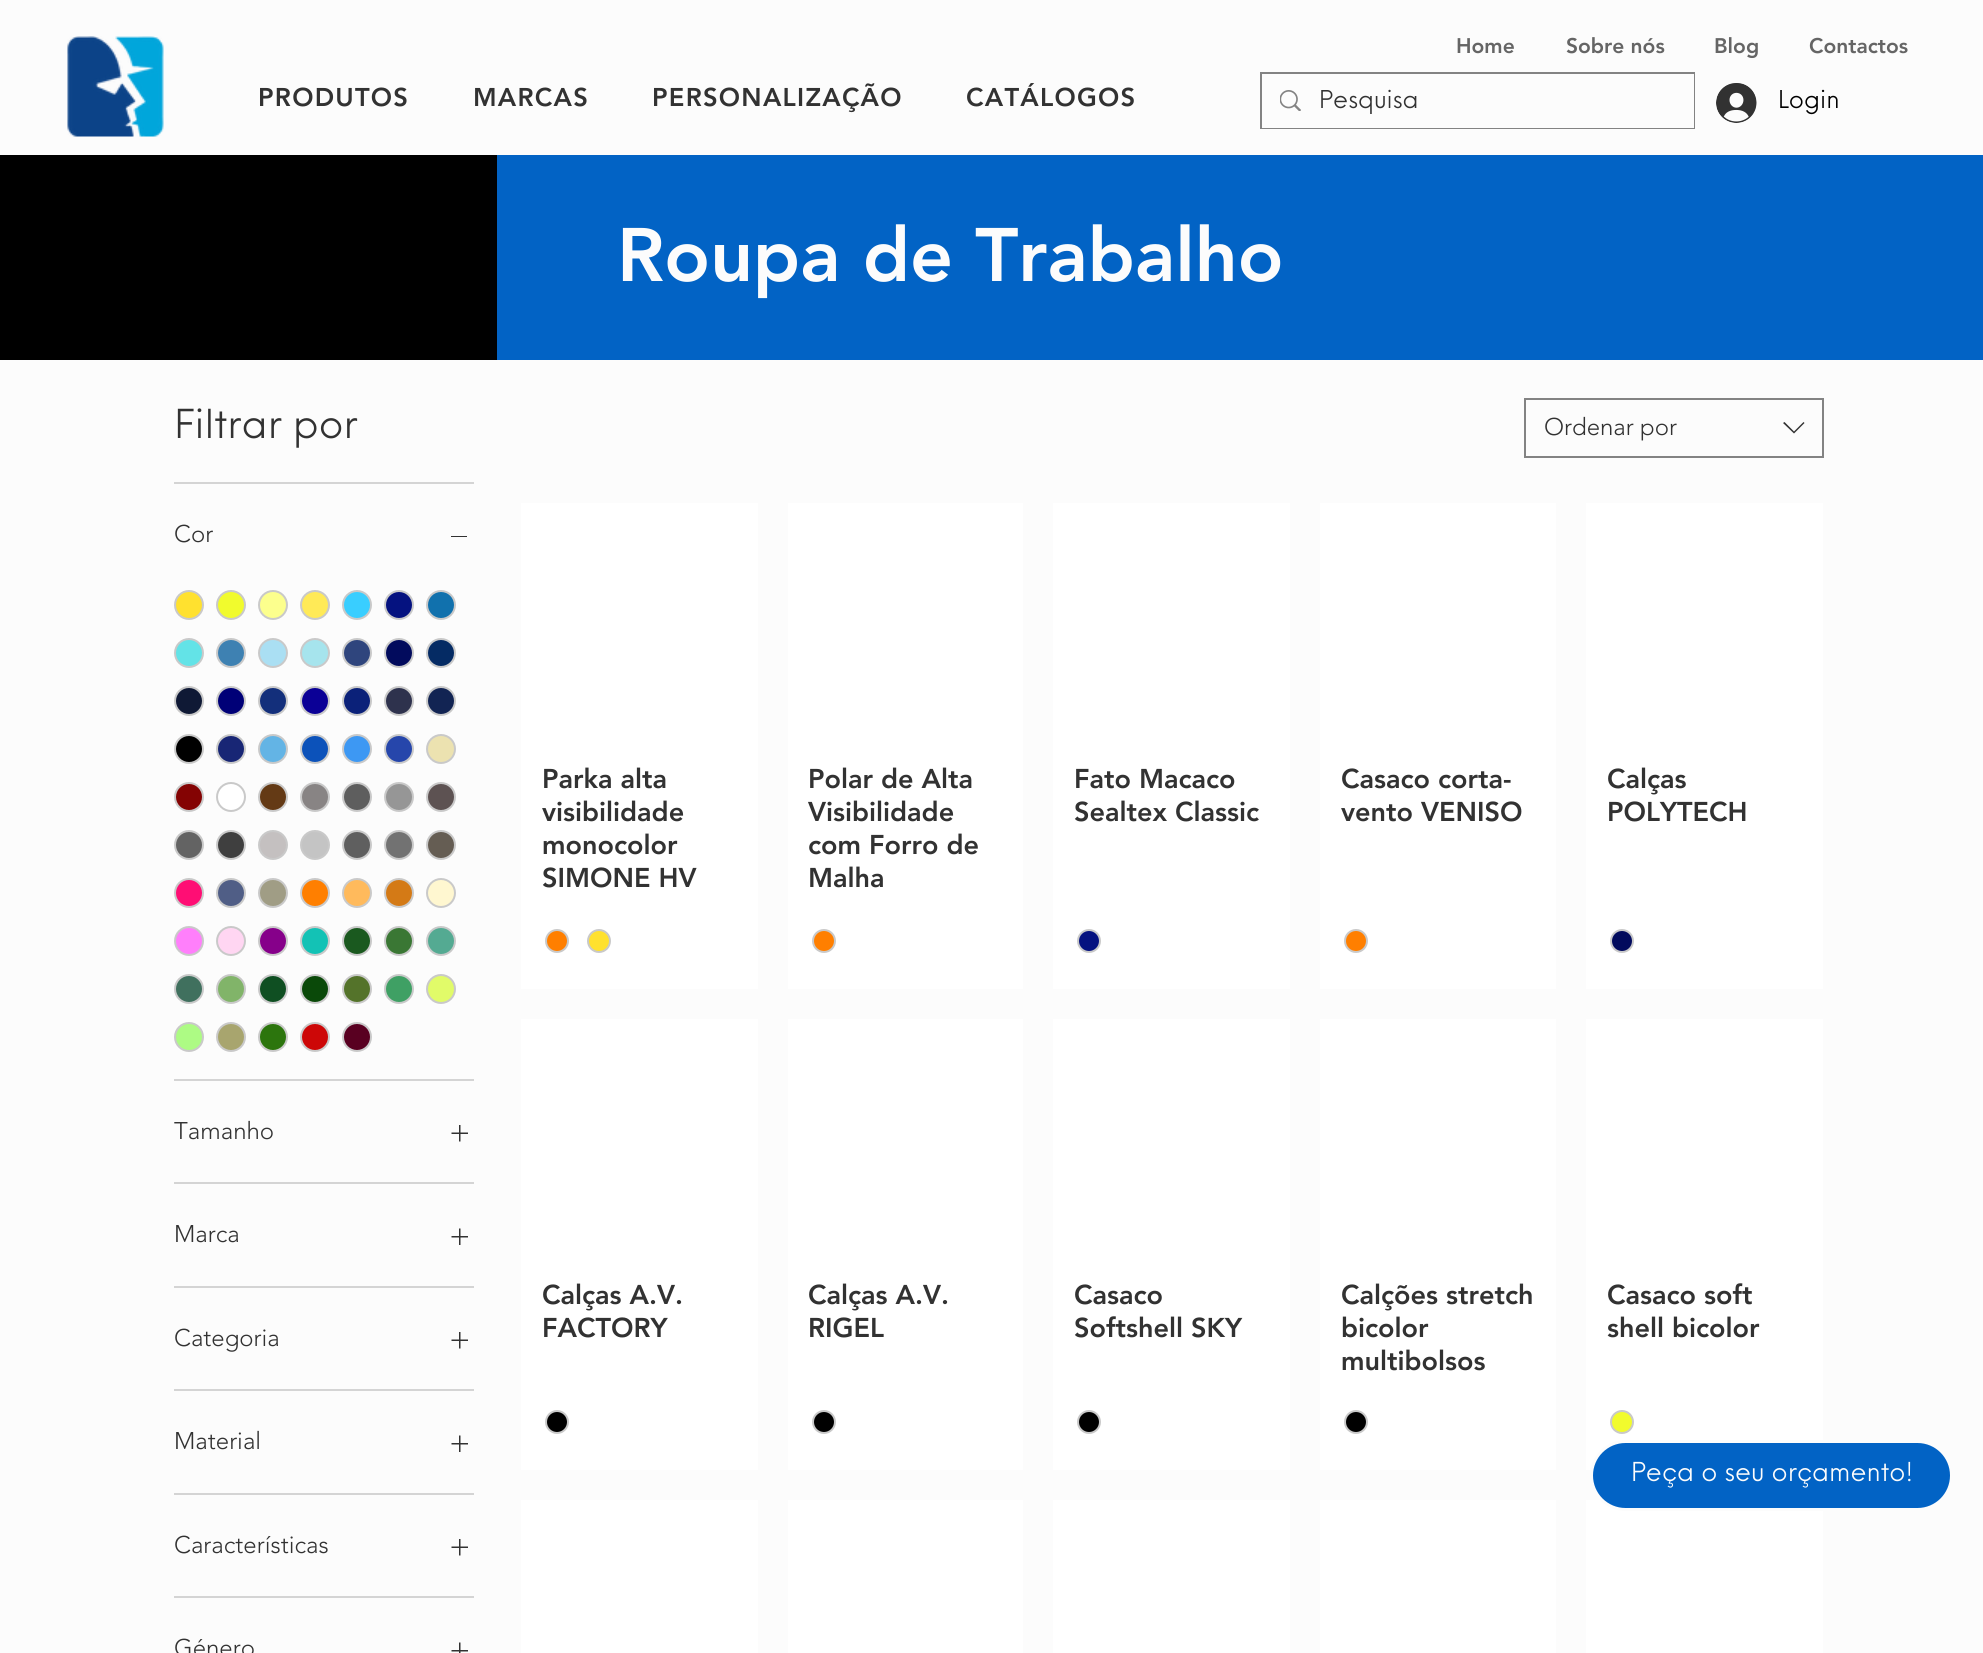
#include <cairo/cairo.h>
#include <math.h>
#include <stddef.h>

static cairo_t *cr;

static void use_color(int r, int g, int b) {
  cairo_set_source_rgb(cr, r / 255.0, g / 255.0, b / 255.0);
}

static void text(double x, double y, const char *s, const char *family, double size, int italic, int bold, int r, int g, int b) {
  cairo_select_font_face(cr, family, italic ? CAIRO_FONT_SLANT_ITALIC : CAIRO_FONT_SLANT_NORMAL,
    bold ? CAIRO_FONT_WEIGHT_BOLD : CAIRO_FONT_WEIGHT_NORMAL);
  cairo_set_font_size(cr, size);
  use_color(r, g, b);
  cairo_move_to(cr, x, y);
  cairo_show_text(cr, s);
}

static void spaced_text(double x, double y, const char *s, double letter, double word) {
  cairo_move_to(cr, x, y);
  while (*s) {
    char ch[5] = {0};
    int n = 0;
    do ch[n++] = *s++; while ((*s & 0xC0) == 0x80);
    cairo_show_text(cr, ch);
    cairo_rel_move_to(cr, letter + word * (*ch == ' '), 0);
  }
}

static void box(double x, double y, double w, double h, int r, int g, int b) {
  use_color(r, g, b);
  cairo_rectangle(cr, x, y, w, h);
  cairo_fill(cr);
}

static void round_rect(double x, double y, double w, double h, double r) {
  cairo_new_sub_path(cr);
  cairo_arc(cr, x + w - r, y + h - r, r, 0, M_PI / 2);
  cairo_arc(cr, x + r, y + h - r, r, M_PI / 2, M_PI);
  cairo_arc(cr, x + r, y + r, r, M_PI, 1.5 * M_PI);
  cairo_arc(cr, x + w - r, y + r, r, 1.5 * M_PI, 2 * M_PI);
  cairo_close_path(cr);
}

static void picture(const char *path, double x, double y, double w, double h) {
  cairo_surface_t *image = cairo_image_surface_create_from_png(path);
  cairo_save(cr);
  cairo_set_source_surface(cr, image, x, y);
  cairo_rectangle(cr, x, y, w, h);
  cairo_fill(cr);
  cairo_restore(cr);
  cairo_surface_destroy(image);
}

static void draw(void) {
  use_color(252, 252, 252);
  cairo_paint(cr);
  picture("img_01.png", 67, 36, 97, 101);
  cairo_rectangle(cr, 1261, 73, 433, 55);
  use_color(131, 131, 131);
  cairo_stroke(cr);
  box(1262, 74, 432, 54, 252, 252, 252);
  picture("img_02.png", 1280, 90, 21, 21);
  picture("img_03.png", 1716, 83, 41, 40);
  box(0, 155, 497, 205, 0, 0, 0);
  box(497, 155, 1486, 205, 2, 99, 197);
  box(174, 482, 300, 2, 212, 212, 212);
  box(174, 1079, 300, 2, 212, 212, 212);
  box(451, 536, 16, 1, 50, 50, 50);
  use_color(255, 225, 47);
  cairo_arc(cr, 189, 605, 14, 0, 2 * M_PI);
  cairo_fill_preserve(cr);
  use_color(201, 201, 201);
  cairo_stroke(cr);
  use_color(241, 251, 45);
  cairo_arc(cr, 231, 605, 14, 0, 2 * M_PI);
  cairo_fill_preserve(cr);
  use_color(201, 201, 201);
  cairo_stroke(cr);
  use_color(252, 255, 141);
  cairo_arc(cr, 273, 605, 14, 0, 2 * M_PI);
  cairo_fill_preserve(cr);
  use_color(201, 201, 201);
  cairo_stroke(cr);
  use_color(255, 234, 87);
  cairo_arc(cr, 315, 605, 14, 0, 2 * M_PI);
  cairo_fill_preserve(cr);
  use_color(201, 201, 201);
  cairo_stroke(cr);
  use_color(57, 206, 255);
  cairo_arc(cr, 357, 605, 14, 0, 2 * M_PI);
  cairo_fill_preserve(cr);
  use_color(201, 201, 201);
  cairo_stroke(cr);
  use_color(5, 18, 128);
  cairo_arc(cr, 399, 605, 14, 0, 2 * M_PI);
  cairo_fill_preserve(cr);
  use_color(201, 201, 201);
  cairo_stroke(cr);
  use_color(17, 113, 173);
  cairo_arc(cr, 441, 605, 14, 0, 2 * M_PI);
  cairo_fill_preserve(cr);
  use_color(201, 201, 201);
  cairo_stroke(cr);
  use_color(99, 227, 231);
  cairo_arc(cr, 189, 653, 14, 0, 2 * M_PI);
  cairo_fill_preserve(cr);
  use_color(201, 201, 201);
  cairo_stroke(cr);
  use_color(62, 129, 178);
  cairo_arc(cr, 231, 653, 14, 0, 2 * M_PI);
  cairo_fill_preserve(cr);
  use_color(201, 201, 201);
  cairo_stroke(cr);
  use_color(170, 223, 243);
  cairo_arc(cr, 273, 653, 14, 0, 2 * M_PI);
  cairo_fill_preserve(cr);
  use_color(201, 201, 201);
  cairo_stroke(cr);
  use_color(166, 228, 237);
  cairo_arc(cr, 315, 653, 14, 0, 2 * M_PI);
  cairo_fill_preserve(cr);
  use_color(201, 201, 201);
  cairo_stroke(cr);
  use_color(47, 69, 125);
  cairo_arc(cr, 357, 653, 14, 0, 2 * M_PI);
  cairo_fill_preserve(cr);
  use_color(201, 201, 201);
  cairo_stroke(cr);
  use_color(2, 11, 93);
  cairo_arc(cr, 399, 653, 14, 0, 2 * M_PI);
  cairo_fill_preserve(cr);
  use_color(201, 201, 201);
  cairo_stroke(cr);
  use_color(5, 43, 100);
  cairo_arc(cr, 441, 653, 14, 0, 2 * M_PI);
  cairo_fill_preserve(cr);
  use_color(201, 201, 201);
  cairo_stroke(cr);
  use_color(15, 25, 53);
  cairo_arc(cr, 189, 701, 14, 0, 2 * M_PI);
  cairo_fill_preserve(cr);
  use_color(201, 201, 201);
  cairo_stroke(cr);
  use_color(0, 0, 119);
  cairo_arc(cr, 231, 701, 14, 0, 2 * M_PI);
  cairo_fill_preserve(cr);
  use_color(201, 201, 201);
  cairo_stroke(cr);
  use_color(19, 47, 123);
  cairo_arc(cr, 273, 701, 14, 0, 2 * M_PI);
  cairo_fill_preserve(cr);
  use_color(201, 201, 201);
  cairo_stroke(cr);
  use_color(11, 0, 150);
  cairo_arc(cr, 315, 701, 14, 0, 2 * M_PI);
  cairo_fill_preserve(cr);
  use_color(201, 201, 201);
  cairo_stroke(cr);
  use_color(11, 33, 121);
  cairo_arc(cr, 357, 701, 14, 0, 2 * M_PI);
  cairo_fill_preserve(cr);
  use_color(201, 201, 201);
  cairo_stroke(cr);
  use_color(46, 50, 77);
  cairo_arc(cr, 399, 701, 14, 0, 2 * M_PI);
  cairo_fill_preserve(cr);
  use_color(201, 201, 201);
  cairo_stroke(cr);
  use_color(18, 36, 83);
  cairo_arc(cr, 441, 701, 14, 0, 2 * M_PI);
  cairo_fill_preserve(cr);
  use_color(201, 201, 201);
  cairo_stroke(cr);
  use_color(0, 0, 0);
  cairo_arc(cr, 189, 749, 14, 0, 2 * M_PI);
  cairo_fill_preserve(cr);
  use_color(201, 201, 201);
  cairo_stroke(cr);
  use_color(24, 38, 117);
  cairo_arc(cr, 231, 749, 14, 0, 2 * M_PI);
  cairo_fill_preserve(cr);
  use_color(201, 201, 201);
  cairo_stroke(cr);
  use_color(99, 180, 229);
  cairo_arc(cr, 273, 749, 14, 0, 2 * M_PI);
  cairo_fill_preserve(cr);
  use_color(201, 201, 201);
  cairo_stroke(cr);
  use_color(12, 82, 186);
  cairo_arc(cr, 315, 749, 14, 0, 2 * M_PI);
  cairo_fill_preserve(cr);
  use_color(201, 201, 201);
  cairo_stroke(cr);
  use_color(61, 152, 243);
  cairo_arc(cr, 357, 749, 14, 0, 2 * M_PI);
  cairo_fill_preserve(cr);
  use_color(201, 201, 201);
  cairo_stroke(cr);
  use_color(38, 70, 171);
  cairo_arc(cr, 399, 749, 14, 0, 2 * M_PI);
  cairo_fill_preserve(cr);
  use_color(201, 201, 201);
  cairo_stroke(cr);
  use_color(236, 226, 176);
  cairo_arc(cr, 441, 749, 14, 0, 2 * M_PI);
  cairo_fill_preserve(cr);
  use_color(201, 201, 201);
  cairo_stroke(cr);
  use_color(132, 3, 3);
  cairo_arc(cr, 189, 797, 14, 0, 2 * M_PI);
  cairo_fill_preserve(cr);
  use_color(201, 201, 201);
  cairo_stroke(cr);
  use_color(255, 255, 255);
  cairo_arc(cr, 231, 797, 14, 0, 2 * M_PI);
  cairo_fill_preserve(cr);
  use_color(201, 201, 201);
  cairo_stroke(cr);
  use_color(100, 58, 21);
  cairo_arc(cr, 273, 797, 14, 0, 2 * M_PI);
  cairo_fill_preserve(cr);
  use_color(201, 201, 201);
  cairo_stroke(cr);
  use_color(136, 132, 132);
  cairo_arc(cr, 315, 797, 14, 0, 2 * M_PI);
  cairo_fill_preserve(cr);
  use_color(201, 201, 201);
  cairo_stroke(cr);
  use_color(94, 94, 94);
  cairo_arc(cr, 357, 797, 14, 0, 2 * M_PI);
  cairo_fill_preserve(cr);
  use_color(201, 201, 201);
  cairo_stroke(cr);
  use_color(150, 150, 150);
  cairo_arc(cr, 399, 797, 14, 0, 2 * M_PI);
  cairo_fill_preserve(cr);
  use_color(201, 201, 201);
  cairo_stroke(cr);
  use_color(93, 82, 82);
  cairo_arc(cr, 441, 797, 14, 0, 2 * M_PI);
  cairo_fill_preserve(cr);
  use_color(201, 201, 201);
  cairo_stroke(cr);
  use_color(99, 99, 99);
  cairo_arc(cr, 189, 845, 14, 0, 2 * M_PI);
  cairo_fill_preserve(cr);
  use_color(201, 201, 201);
  cairo_stroke(cr);
  use_color(63, 63, 63);
  cairo_arc(cr, 231, 845, 14, 0, 2 * M_PI);
  cairo_fill_preserve(cr);
  use_color(201, 201, 201);
  cairo_stroke(cr);
  use_color(196, 192, 192);
  cairo_arc(cr, 273, 845, 14, 0, 2 * M_PI);
  cairo_fill_preserve(cr);
  use_color(201, 201, 201);
  cairo_stroke(cr);
  use_color(196, 196, 196);
  cairo_arc(cr, 315, 845, 14, 0, 2 * M_PI);
  cairo_fill_preserve(cr);
  use_color(201, 201, 201);
  cairo_stroke(cr);
  use_color(95, 95, 95);
  cairo_arc(cr, 357, 845, 14, 0, 2 * M_PI);
  cairo_fill_preserve(cr);
  use_color(201, 201, 201);
  cairo_stroke(cr);
  use_color(114, 114, 114);
  cairo_arc(cr, 399, 845, 14, 0, 2 * M_PI);
  cairo_fill_preserve(cr);
  use_color(201, 201, 201);
  cairo_stroke(cr);
  use_color(101, 93, 83);
  cairo_arc(cr, 441, 845, 14, 0, 2 * M_PI);
  cairo_fill_preserve(cr);
  use_color(201, 201, 201);
  cairo_stroke(cr);
  use_color(255, 14, 116);
  cairo_arc(cr, 189, 893, 14, 0, 2 * M_PI);
  cairo_fill_preserve(cr);
  use_color(201, 201, 201);
  cairo_stroke(cr);
  use_color(80, 94, 134);
  cairo_arc(cr, 231, 893, 14, 0, 2 * M_PI);
  cairo_fill_preserve(cr);
  use_color(201, 201, 201);
  cairo_stroke(cr);
  use_color(160, 157, 133);
  cairo_arc(cr, 273, 893, 14, 0, 2 * M_PI);
  cairo_fill_preserve(cr);
  use_color(201, 201, 201);
  cairo_stroke(cr);
  use_color(255, 127, 0);
  cairo_arc(cr, 315, 893, 14, 0, 2 * M_PI);
  cairo_fill_preserve(cr);
  use_color(201, 201, 201);
  cairo_stroke(cr);
  use_color(255, 186, 92);
  cairo_arc(cr, 357, 893, 14, 0, 2 * M_PI);
  cairo_fill_preserve(cr);
  use_color(201, 201, 201);
  cairo_stroke(cr);
  use_color(212, 122, 22);
  cairo_arc(cr, 399, 893, 14, 0, 2 * M_PI);
  cairo_fill_preserve(cr);
  use_color(201, 201, 201);
  cairo_stroke(cr);
  use_color(255, 247, 208);
  cairo_arc(cr, 441, 893, 14, 0, 2 * M_PI);
  cairo_fill_preserve(cr);
  use_color(201, 201, 201);
  cairo_stroke(cr);
  use_color(255, 127, 251);
  cairo_arc(cr, 189, 941, 14, 0, 2 * M_PI);
  cairo_fill_preserve(cr);
  use_color(201, 201, 201);
  cairo_stroke(cr);
  use_color(255, 214, 242);
  cairo_arc(cr, 231, 941, 14, 0, 2 * M_PI);
  cairo_fill_preserve(cr);
  use_color(201, 201, 201);
  cairo_stroke(cr);
  use_color(134, 0, 138);
  cairo_arc(cr, 273, 941, 14, 0, 2 * M_PI);
  cairo_fill_preserve(cr);
  use_color(201, 201, 201);
  cairo_stroke(cr);
  use_color(19, 194, 181);
  cairo_arc(cr, 315, 941, 14, 0, 2 * M_PI);
  cairo_fill_preserve(cr);
  use_color(201, 201, 201);
  cairo_stroke(cr);
  use_color(26, 89, 31);
  cairo_arc(cr, 357, 941, 14, 0, 2 * M_PI);
  cairo_fill_preserve(cr);
  use_color(201, 201, 201);
  cairo_stroke(cr);
  use_color(58, 119, 52);
  cairo_arc(cr, 399, 941, 14, 0, 2 * M_PI);
  cairo_fill_preserve(cr);
  use_color(201, 201, 201);
  cairo_stroke(cr);
  use_color(84, 170, 146);
  cairo_arc(cr, 441, 941, 14, 0, 2 * M_PI);
  cairo_fill_preserve(cr);
  use_color(201, 201, 201);
  cairo_stroke(cr);
  use_color(64, 112, 94);
  cairo_arc(cr, 189, 989, 14, 0, 2 * M_PI);
  cairo_fill_preserve(cr);
  use_color(201, 201, 201);
  cairo_stroke(cr);
  use_color(129, 180, 105);
  cairo_arc(cr, 231, 989, 14, 0, 2 * M_PI);
  cairo_fill_preserve(cr);
  use_color(201, 201, 201);
  cairo_stroke(cr);
  use_color(15, 79, 34);
  cairo_arc(cr, 273, 989, 14, 0, 2 * M_PI);
  cairo_fill_preserve(cr);
  use_color(201, 201, 201);
  cairo_stroke(cr);
  use_color(10, 73, 9);
  cairo_arc(cr, 315, 989, 14, 0, 2 * M_PI);
  cairo_fill_preserve(cr);
  use_color(201, 201, 201);
  cairo_stroke(cr);
  use_color(84, 115, 42);
  cairo_arc(cr, 357, 989, 14, 0, 2 * M_PI);
  cairo_fill_preserve(cr);
  use_color(201, 201, 201);
  cairo_stroke(cr);
  use_color(63, 160, 100);
  cairo_arc(cr, 399, 989, 14, 0, 2 * M_PI);
  cairo_fill_preserve(cr);
  use_color(201, 201, 201);
  cairo_stroke(cr);
  use_color(225, 251, 105);
  cairo_arc(cr, 441, 989, 14, 0, 2 * M_PI);
  cairo_fill_preserve(cr);
  use_color(201, 201, 201);
  cairo_stroke(cr);
  use_color(173, 251, 132);
  cairo_arc(cr, 189, 1037, 14, 0, 2 * M_PI);
  cairo_fill_preserve(cr);
  use_color(201, 201, 201);
  cairo_stroke(cr);
  use_color(168, 165, 110);
  cairo_arc(cr, 231, 1037, 14, 0, 2 * M_PI);
  cairo_fill_preserve(cr);
  use_color(201, 201, 201);
  cairo_stroke(cr);
  use_color(44, 117, 13);
  cairo_arc(cr, 273, 1037, 14, 0, 2 * M_PI);
  cairo_fill_preserve(cr);
  use_color(201, 201, 201);
  cairo_stroke(cr);
  use_color(205, 7, 7);
  cairo_arc(cr, 315, 1037, 14, 0, 2 * M_PI);
  cairo_fill_preserve(cr);
  use_color(201, 201, 201);
  cairo_stroke(cr);
  use_color(89, 0, 33);
  cairo_arc(cr, 357, 1037, 14, 0, 2 * M_PI);
  cairo_fill_preserve(cr);
  use_color(201, 201, 201);
  cairo_stroke(cr);
  box(174, 1182, 300, 2, 212, 212, 212);
  picture("img_04.png", 451, 1125, 17, 17);
  box(174, 1286, 300, 2, 212, 212, 212);
  picture("img_05.png", 451, 1228, 17, 17);
  box(174, 1389, 300, 2, 212, 212, 212);
  picture("img_04.png", 451, 1332, 17, 17);
  box(174, 1493, 300, 2, 212, 212, 212);
  picture("img_05.png", 451, 1435, 17, 17);
  box(174, 1596, 300, 2, 212, 212, 212);
  picture("img_04.png", 451, 1539, 17, 17);
  picture("img_06.png", 451, 1642, 17, 11);
  cairo_rectangle(cr, 1525, 399, 298, 58);
  use_color(131, 131, 131);
  cairo_stroke(cr);
  use_color(50, 50, 50);
  cairo_set_fill_rule(cr, CAIRO_FILL_RULE_EVEN_ODD);
  cairo_new_path(cr);
  cairo_move_to(cr, 1803.5, 422);
  cairo_line_to(cr, 1804.5, 423);
  cairo_line_to(cr, 1794, 433.5);
  cairo_line_to(cr, 1783, 423);
  cairo_line_to(cr, 1784.5, 422);
  cairo_line_to(cr, 1794, 431.5);
  cairo_close_path(cr);
  cairo_fill(cr);
  box(521, 503, 237, 486, 255, 255, 255);
  use_color(255, 127, 0);
  cairo_arc(cr, 557, 941, 11, 0, 2 * M_PI);
  cairo_fill_preserve(cr);
  use_color(201, 201, 201);
  cairo_stroke(cr);
  use_color(255, 225, 47);
  cairo_arc(cr, 599, 941, 11, 0, 2 * M_PI);
  cairo_fill_preserve(cr);
  use_color(201, 201, 201);
  cairo_stroke(cr);
  box(788, 503, 235, 486, 255, 255, 255);
  use_color(255, 127, 0);
  cairo_arc(cr, 824, 941, 11, 0, 2 * M_PI);
  cairo_fill_preserve(cr);
  use_color(201, 201, 201);
  cairo_stroke(cr);
  box(1053, 503, 237, 486, 255, 255, 255);
  use_color(5, 18, 128);
  cairo_arc(cr, 1089, 941, 11, 0, 2 * M_PI);
  cairo_fill_preserve(cr);
  use_color(201, 201, 201);
  cairo_stroke(cr);
  box(1320, 503, 236, 486, 255, 255, 255);
  use_color(255, 127, 0);
  cairo_arc(cr, 1356, 941, 11, 0, 2 * M_PI);
  cairo_fill_preserve(cr);
  use_color(201, 201, 201);
  cairo_stroke(cr);
  box(1586, 503, 237, 486, 255, 255, 255);
  use_color(2, 11, 93);
  cairo_arc(cr, 1622, 941, 11, 0, 2 * M_PI);
  cairo_fill_preserve(cr);
  use_color(201, 201, 201);
  cairo_stroke(cr);
  box(521, 1019, 237, 451, 255, 255, 255);
  use_color(0, 0, 0);
  cairo_arc(cr, 557, 1422, 11, 0, 2 * M_PI);
  cairo_fill_preserve(cr);
  use_color(201, 201, 201);
  cairo_stroke(cr);
  box(788, 1019, 235, 451, 255, 255, 255);
  use_color(0, 0, 0);
  cairo_arc(cr, 824, 1422, 11, 0, 2 * M_PI);
  cairo_fill_preserve(cr);
  use_color(201, 201, 201);
  cairo_stroke(cr);
  box(1053, 1019, 237, 451, 255, 255, 255);
  use_color(0, 0, 0);
  cairo_arc(cr, 1089, 1422, 11, 0, 2 * M_PI);
  cairo_fill_preserve(cr);
  use_color(201, 201, 201);
  cairo_stroke(cr);
  box(1320, 1019, 236, 451, 255, 255, 255);
  use_color(0, 0, 0);
  cairo_arc(cr, 1356, 1422, 11, 0, 2 * M_PI);
  cairo_fill_preserve(cr);
  use_color(201, 201, 201);
  cairo_stroke(cr);
  box(1586, 1019, 237, 451, 255, 255, 255);
  use_color(241, 251, 45);
  cairo_arc(cr, 1622, 1422, 11, 0, 2 * M_PI);
  cairo_fill_preserve(cr);
  use_color(201, 201, 201);
  cairo_stroke(cr);
  box(521, 1500, 237, 153, 255, 255, 255);
  box(788, 1500, 235, 153, 255, 255, 255);
  box(1053, 1500, 237, 153, 255, 255, 255);
  box(1320, 1500, 236, 153, 255, 255, 255);
  box(1586, 1500, 237, 153, 255, 255, 255);
  use_color(2, 99, 197);
  round_rect(1591.5, 1441.5, 360, 68, 34);
  cairo_fill_preserve(cr);
  use_color(252, 252, 252);
  cairo_set_line_width(cr, 3);
  cairo_stroke(cr);
  cairo_select_font_face(cr, "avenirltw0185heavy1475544 Black", CAIRO_FONT_SLANT_NORMAL, CAIRO_FONT_WEIGHT_NORMAL);
  cairo_set_font_size(cr, 25.5);
  use_color(50, 50, 50);
  spaced_text(258, 106, "PRODUTOS", 1.25, 0);
  spaced_text(473, 106, "MARCAS", 1.25, 0);
  spaced_text(652, 106, "PERSONALIZAÇÃO", 1.25, 0);
  spaced_text(966, 106, "CATÁLOGOS", 1.25, 0);
  text(1456, 53, "Home", "avenirltw0185heavy1475544 Black", 21, 0, 0, 101, 101, 101);
  text(1566, 53, "Sobre nós", "avenirltw0185heavy1475544 Black", 21, 0, 0, 101, 101, 101);
  text(1714, 53, "Blog", "avenirltw0185heavy1475544 Black", 21, 0, 0, 101, 101, 101);
  text(1809, 53, "Contactos", "avenirltw0185heavy1475544 Black", 21, 0, 0, 101, 101, 101);
  text(1319, 108, "Pesquisa", "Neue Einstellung", 24, 0, 0, 50, 50, 50);
  text(1778, 108, "Login", "Neue Einstellung", 24, 0, 0, 0, 0, 0);
  text(617, 281, "Roupa de Trabalho", "avenirltw0185heavy1475544 Black", 75, 0, 0, 252, 252, 252);
  text(174, 438, "Filtrar por", "Neue Einstellung", 39, 0, 0, 50, 50, 50);
  text(174, 542, "Cor", "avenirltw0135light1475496 Light", 24, 0, 0, 50, 50, 50);
  text(174, 1139, "Tamanho", "avenirltw0135light1475496 Light", 24, 0, 0, 50, 50, 50);
  text(174, 1242, "Marca", "avenirltw0135light1475496 Light", 24, 0, 0, 50, 50, 50);
  text(174, 1346, "Categoria", "avenirltw0135light1475496 Light", 24, 0, 0, 50, 50, 50);
  text(174, 1449, "Material", "avenirltw0135light1475496 Light", 24, 0, 0, 50, 50, 50);
  text(174, 1553, "Características", "avenirltw0135light1475496 Light", 24, 0, 0, 50, 50, 50);
  text(174, 1656, "Género", "avenirltw0135light1475496 Light", 24, 0, 0, 50, 50, 50);
  text(1544, 435, "Ordenar por", "avenirltw0135light1475496 Light", 24, 0, 0, 50, 50, 50);
  text(542, 788, "Parka alta", "avenirltw0185heavy1475544 Black", 27, 0, 0, 50, 50, 50);
  text(542, 821, "visibilidade", "avenirltw0185heavy1475544 Black", 27, 0, 0, 50, 50, 50);
  text(542, 854, "monocolor", "avenirltw0185heavy1475544 Black", 27, 0, 0, 50, 50, 50);
  text(542, 887, "SIMONE HV", "avenirltw0185heavy1475544 Black", 27, 0, 0, 50, 50, 50);
  text(808, 788, "Polar de Alta", "avenirltw0185heavy1475544 Black", 27, 0, 0, 50, 50, 50);
  text(808, 821, "Visibilidade", "avenirltw0185heavy1475544 Black", 27, 0, 0, 50, 50, 50);
  text(808, 854, "com Forro de", "avenirltw0185heavy1475544 Black", 27, 0, 0, 50, 50, 50);
  text(808, 887, "Malha", "avenirltw0185heavy1475544 Black", 27, 0, 0, 50, 50, 50);
  text(1074, 788, "Fato Macaco", "avenirltw0185heavy1475544 Black", 27, 0, 0, 50, 50, 50);
  text(1074, 821, "Sealtex Classic", "avenirltw0185heavy1475544 Black", 27, 0, 0, 50, 50, 50);
  text(1341, 788, "Casaco corta-", "avenirltw0185heavy1475544 Black", 27, 0, 0, 50, 50, 50);
  text(1341, 821, "vento VENISO", "avenirltw0185heavy1475544 Black", 27, 0, 0, 50, 50, 50);
  text(1607, 788, "Calças", "avenirltw0185heavy1475544 Black", 27, 0, 0, 50, 50, 50);
  text(1607, 821, "POLYTECH", "avenirltw0185heavy1475544 Black", 27, 0, 0, 50, 50, 50);
  text(542, 1304, "Calças A.V.", "avenirltw0185heavy1475544 Black", 27, 0, 0, 50, 50, 50);
  text(542, 1337, "FACTORY", "avenirltw0185heavy1475544 Black", 27, 0, 0, 50, 50, 50);
  text(808, 1304, "Calças A.V.", "avenirltw0185heavy1475544 Black", 27, 0, 0, 50, 50, 50);
  text(808, 1337, "RIGEL", "avenirltw0185heavy1475544 Black", 27, 0, 0, 50, 50, 50);
  text(1074, 1304, "Casaco", "avenirltw0185heavy1475544 Black", 27, 0, 0, 50, 50, 50);
  text(1074, 1337, "Softshell SKY", "avenirltw0185heavy1475544 Black", 27, 0, 0, 50, 50, 50);
  text(1341, 1304, "Calções stretch", "avenirltw0185heavy1475544 Black", 27, 0, 0, 50, 50, 50);
  text(1341, 1337, "bicolor", "avenirltw0185heavy1475544 Black", 27, 0, 0, 50, 50, 50);
  text(1341, 1370, "multibolsos", "avenirltw0185heavy1475544 Black", 27, 0, 0, 50, 50, 50);
  text(1607, 1304, "Casaco soft", "avenirltw0185heavy1475544 Black", 27, 0, 0, 50, 50, 50);
  text(1607, 1337, "shell bicolor", "avenirltw0185heavy1475544 Black", 27, 0, 0, 50, 50, 50);
  text(1631, 1481, "Peça o seu orçamento!", "Neue Einstellung", 25.5, 0, 0, 252, 252, 252);
}

int main(void) {
  cairo_surface_t *surface = cairo_image_surface_create(CAIRO_FORMAT_RGB24, 1983, 1653);
  cr = cairo_create(surface);
  cairo_font_options_t *options = cairo_font_options_create();
  cairo_font_options_set_hint_metrics(options, CAIRO_HINT_METRICS_OFF);
  cairo_font_options_set_hint_style(options, CAIRO_HINT_STYLE_NONE);
  cairo_set_font_options(cr, options);
  cairo_set_miter_limit(cr, 4);
  draw();
  cairo_surface_write_to_png(surface, "out.png");
  cairo_font_options_destroy(options);
  cairo_destroy(cr);
  cairo_surface_destroy(surface);
  return 0;
}
